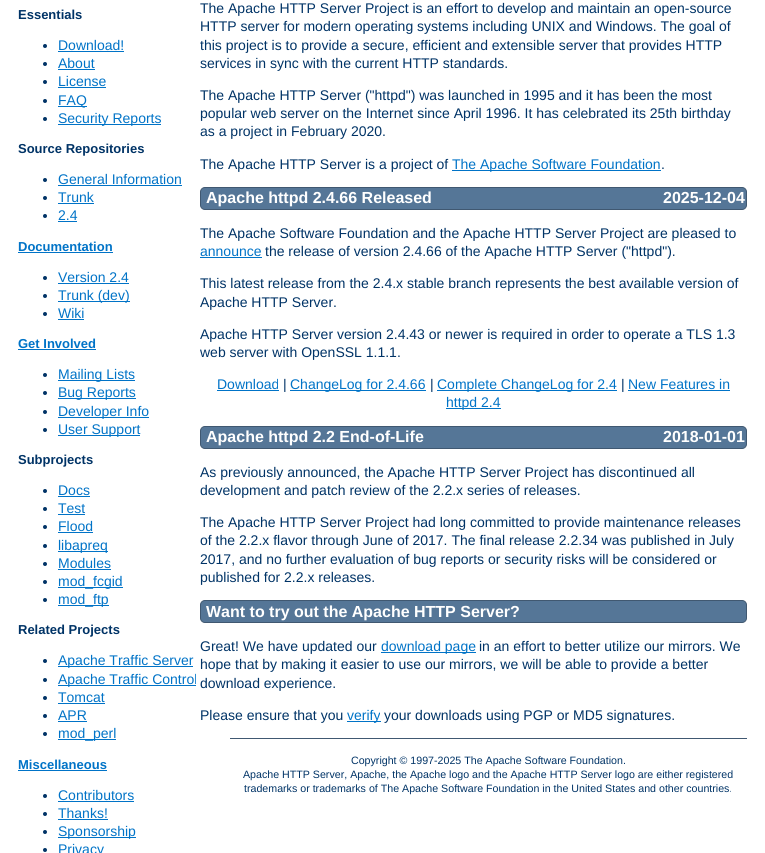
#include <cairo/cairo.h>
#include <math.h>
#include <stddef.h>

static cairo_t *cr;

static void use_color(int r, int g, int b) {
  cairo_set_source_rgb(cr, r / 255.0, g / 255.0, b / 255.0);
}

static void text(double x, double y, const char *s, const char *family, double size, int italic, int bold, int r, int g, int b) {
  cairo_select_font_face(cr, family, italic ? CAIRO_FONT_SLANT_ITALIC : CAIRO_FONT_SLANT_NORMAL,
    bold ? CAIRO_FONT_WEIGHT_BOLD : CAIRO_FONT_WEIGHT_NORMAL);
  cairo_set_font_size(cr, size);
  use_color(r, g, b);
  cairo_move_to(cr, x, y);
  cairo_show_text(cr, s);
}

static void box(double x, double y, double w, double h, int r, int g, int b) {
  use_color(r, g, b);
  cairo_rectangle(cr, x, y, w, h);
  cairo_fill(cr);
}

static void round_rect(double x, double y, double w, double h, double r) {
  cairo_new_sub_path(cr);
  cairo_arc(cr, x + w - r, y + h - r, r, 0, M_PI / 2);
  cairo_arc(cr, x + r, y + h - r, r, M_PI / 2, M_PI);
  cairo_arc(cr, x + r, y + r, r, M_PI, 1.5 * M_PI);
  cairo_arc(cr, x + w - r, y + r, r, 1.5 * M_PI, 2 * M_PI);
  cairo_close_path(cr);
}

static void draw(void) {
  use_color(255, 255, 255);
  cairo_paint(cr);
  use_color(0, 51, 102);
  cairo_arc(cr, 45, 46, 2, 0, 2 * M_PI);
  cairo_fill(cr);
  box(58, 51, 66, 1, 0, 115, 199);
  use_color(0, 51, 102);
  cairo_arc(cr, 45, 64, 2, 0, 2 * M_PI);
  cairo_fill(cr);
  box(58, 69, 37, 1, 0, 115, 199);
  use_color(0, 51, 102);
  cairo_arc(cr, 45, 82, 2, 0, 2 * M_PI);
  cairo_fill(cr);
  box(58, 87, 48, 1, 0, 115, 199);
  use_color(0, 51, 102);
  cairo_arc(cr, 45, 101, 2, 0, 2 * M_PI);
  cairo_fill(cr);
  box(58, 106, 29, 1, 0, 115, 199);
  use_color(0, 51, 102);
  cairo_arc(cr, 45, 119, 2, 0, 2 * M_PI);
  cairo_fill(cr);
  box(58, 124, 103, 1, 0, 115, 199);
  use_color(0, 51, 102);
  cairo_arc(cr, 45, 180, 2, 0, 2 * M_PI);
  cairo_fill(cr);
  box(58, 185, 124, 1, 0, 115, 199);
  use_color(0, 51, 102);
  cairo_arc(cr, 45, 198, 2, 0, 2 * M_PI);
  cairo_fill(cr);
  box(58, 203, 36, 1, 0, 115, 199);
  use_color(0, 51, 102);
  cairo_arc(cr, 45, 216, 2, 0, 2 * M_PI);
  cairo_fill(cr);
  box(58, 221, 19, 1, 0, 115, 199);
  box(18, 252, 95, 1, 0, 115, 199);
  use_color(0, 51, 102);
  cairo_arc(cr, 45, 278, 2, 0, 2 * M_PI);
  cairo_fill(cr);
  box(58, 283, 71, 1, 0, 115, 199);
  use_color(0, 51, 102);
  cairo_arc(cr, 45, 296, 2, 0, 2 * M_PI);
  cairo_fill(cr);
  box(58, 301, 72, 1, 0, 115, 199);
  use_color(0, 51, 102);
  cairo_arc(cr, 45, 314, 2, 0, 2 * M_PI);
  cairo_fill(cr);
  box(58, 319, 26, 1, 0, 115, 199);
  box(18, 349, 78, 1, 0, 115, 199);
  use_color(0, 51, 102);
  cairo_arc(cr, 45, 375, 2, 0, 2 * M_PI);
  cairo_fill(cr);
  box(58, 380, 77, 1, 0, 115, 199);
  use_color(0, 51, 102);
  cairo_arc(cr, 45, 393, 2, 0, 2 * M_PI);
  cairo_fill(cr);
  box(58, 398, 78, 1, 0, 115, 199);
  use_color(0, 51, 102);
  cairo_arc(cr, 45, 412, 2, 0, 2 * M_PI);
  cairo_fill(cr);
  box(58, 417, 91, 1, 0, 115, 199);
  use_color(0, 51, 102);
  cairo_arc(cr, 45, 430, 2, 0, 2 * M_PI);
  cairo_fill(cr);
  box(58, 435, 82, 1, 0, 115, 199);
  use_color(0, 51, 102);
  cairo_arc(cr, 45, 491, 2, 0, 2 * M_PI);
  cairo_fill(cr);
  box(58, 496, 32, 1, 0, 115, 199);
  use_color(0, 51, 102);
  cairo_arc(cr, 45, 509, 2, 0, 2 * M_PI);
  cairo_fill(cr);
  box(58, 514, 27, 1, 0, 115, 199);
  use_color(0, 51, 102);
  cairo_arc(cr, 45, 527, 2, 0, 2 * M_PI);
  cairo_fill(cr);
  box(58, 532, 35, 1, 0, 115, 199);
  use_color(0, 51, 102);
  cairo_arc(cr, 45, 546, 2, 0, 2 * M_PI);
  cairo_fill(cr);
  box(58, 551, 50, 1, 0, 115, 199);
  use_color(0, 51, 102);
  cairo_arc(cr, 45, 564, 2, 0, 2 * M_PI);
  cairo_fill(cr);
  box(58, 569, 53, 1, 0, 115, 199);
  use_color(0, 51, 102);
  cairo_arc(cr, 45, 582, 2, 0, 2 * M_PI);
  cairo_fill(cr);
  box(58, 587, 65, 1, 0, 115, 199);
  use_color(0, 51, 102);
  cairo_arc(cr, 45, 600, 2, 0, 2 * M_PI);
  cairo_fill(cr);
  box(58, 605, 51, 1, 0, 115, 199);
  use_color(0, 51, 102);
  cairo_arc(cr, 45, 661, 2, 0, 2 * M_PI);
  cairo_fill(cr);
  box(58, 666, 135, 1, 0, 115, 199);
  use_color(0, 51, 102);
  cairo_arc(cr, 45, 680, 2, 0, 2 * M_PI);
  cairo_fill(cr);
  box(58, 685, 139, 1, 0, 115, 199);
  use_color(0, 51, 102);
  cairo_arc(cr, 45, 698, 2, 0, 2 * M_PI);
  cairo_fill(cr);
  box(58, 703, 47, 1, 0, 115, 199);
  use_color(0, 51, 102);
  cairo_arc(cr, 45, 716, 2, 0, 2 * M_PI);
  cairo_fill(cr);
  box(58, 721, 29, 1, 0, 115, 199);
  use_color(0, 51, 102);
  cairo_arc(cr, 45, 734, 2, 0, 2 * M_PI);
  cairo_fill(cr);
  box(58, 739, 58, 1, 0, 115, 199);
  box(18, 770, 89, 1, 0, 115, 199);
  use_color(0, 51, 102);
  cairo_arc(cr, 45, 796, 2, 0, 2 * M_PI);
  cairo_fill(cr);
  box(58, 801, 76, 1, 0, 115, 199);
  use_color(0, 51, 102);
  cairo_arc(cr, 45, 814, 2, 0, 2 * M_PI);
  cairo_fill(cr);
  box(58, 819, 50, 1, 0, 115, 199);
  use_color(0, 51, 102);
  cairo_arc(cr, 45, 832, 2, 0, 2 * M_PI);
  cairo_fill(cr);
  box(58, 837, 78, 1, 0, 115, 199);
  use_color(0, 51, 102);
  cairo_arc(cr, 45, 850, 2, 0, 2 * M_PI);
  cairo_fill(cr);
  box(452, 170, 209, 1, 0, 115, 199);
  use_color(85, 118, 151);
  round_rect(200.5, 187.5, 546, 22, 4.5);
  cairo_fill_preserve(cr);
  use_color(64, 88, 113);
  cairo_set_line_width(cr, 1);
  cairo_stroke(cr);
  box(200, 257, 62, 1, 0, 115, 199);
  box(217, 390, 62, 1, 0, 115, 199);
  box(290, 390, 136, 1, 0, 115, 199);
  box(437, 390, 180, 1, 0, 115, 199);
  box(628, 390, 102, 1, 0, 115, 199);
  box(446, 408, 55, 1, 0, 115, 199);
  use_color(85, 118, 151);
  round_rect(200.5, 426.5, 546, 22, 4.5);
  cairo_fill_preserve(cr);
  use_color(64, 88, 113);
  cairo_stroke(cr);
  use_color(85, 118, 151);
  round_rect(200.5, 600.5, 546, 22, 4.5);
  cairo_fill_preserve(cr);
  use_color(64, 88, 113);
  cairo_stroke(cr);
  box(381, 652, 95, 1, 0, 115, 199);
  box(347, 721, 34, 1, 0, 115, 199);
  box(230, 738, 517, 1, 64, 88, 113);
  text(18, 19, "Essentials", "Liberation Sans", 13, 0, 1, 0, 51, 102);
  text(58, 50, "Download!", "Liberation Sans", 14, 0, 0, 0, 115, 199);
  text(58, 68, "About", "Liberation Sans", 14, 0, 0, 0, 115, 199);
  text(58, 86, "License", "Liberation Sans", 14, 0, 0, 0, 115, 199);
  text(58, 105, "FAQ", "Liberation Sans", 14, 0, 0, 0, 115, 199);
  text(58, 123, "Security Reports", "Liberation Sans", 14, 0, 0, 0, 115, 199);
  text(18, 153, "Source Repositories", "Liberation Sans", 13, 0, 1, 0, 51, 102);
  text(58, 184, "General Information", "Liberation Sans", 14, 0, 0, 0, 115, 199);
  text(58, 202, "Trunk", "Liberation Sans", 14, 0, 0, 0, 115, 199);
  text(58, 220, "2.4", "Liberation Sans", 14, 0, 0, 0, 115, 199);
  text(18, 251, "Documentation", "Liberation Sans", 13, 0, 1, 0, 115, 199);
  text(58, 282, "Version 2.4", "Liberation Sans", 14, 0, 0, 0, 115, 199);
  text(58, 300, "Trunk (dev)", "Liberation Sans", 14, 0, 0, 0, 115, 199);
  text(58, 318, "Wiki", "Liberation Sans", 14, 0, 0, 0, 115, 199);
  text(18, 348, "Get Involved", "Liberation Sans", 13, 0, 1, 0, 115, 199);
  text(58, 379, "Mailing Lists", "Liberation Sans", 14, 0, 0, 0, 115, 199);
  text(58, 397, "Bug Reports", "Liberation Sans", 14, 0, 0, 0, 115, 199);
  text(58, 416, "Developer Info", "Liberation Sans", 14, 0, 0, 0, 115, 199);
  text(58, 434, "User Support", "Liberation Sans", 14, 0, 0, 0, 115, 199);
  text(18, 464, "Subprojects", "Liberation Sans", 13, 0, 1, 0, 51, 102);
  text(58, 495, "Docs", "Liberation Sans", 14, 0, 0, 0, 115, 199);
  text(58, 513, "Test", "Liberation Sans", 14, 0, 0, 0, 115, 199);
  text(58, 531, "Flood", "Liberation Sans", 14, 0, 0, 0, 115, 199);
  text(58, 550, "libapreq", "Liberation Sans", 14, 0, 0, 0, 115, 199);
  text(58, 568, "Modules", "Liberation Sans", 14, 0, 0, 0, 115, 199);
  text(58, 586, "mod_fcgid", "Liberation Sans", 14, 0, 0, 0, 115, 199);
  text(58, 604, "mod_ftp", "Liberation Sans", 14, 0, 0, 0, 115, 199);
  text(18, 634, "Related Projects", "Liberation Sans", 13, 0, 1, 0, 51, 102);
  text(58, 665, "Apache Traffic Server", "Liberation Sans", 14, 0, 0, 0, 115, 199);
  text(58, 684, "Apache Traffic Control", "Liberation Sans", 14, 0, 0, 0, 115, 199);
  text(58, 702, "Tomcat", "Liberation Sans", 14, 0, 0, 0, 115, 199);
  text(58, 720, "APR", "Liberation Sans", 14, 0, 0, 0, 115, 199);
  text(58, 738, "mod_perl", "Liberation Sans", 14, 0, 0, 0, 115, 199);
  text(18, 769, "Miscellaneous", "Liberation Sans", 13, 0, 1, 0, 115, 199);
  text(58, 800, "Contributors", "Liberation Sans", 14, 0, 0, 0, 115, 199);
  text(58, 818, "Thanks!", "Liberation Sans", 14, 0, 0, 0, 115, 199);
  text(58, 836, "Sponsorship", "Liberation Sans", 14, 0, 0, 0, 115, 199);
  text(58, 854, "Privacy", "Liberation Sans", 14, 0, 0, 0, 115, 199);
  box(196, 673, 1, 13, 255, 255, 255);
  text(200, 13, "The Apache HTTP Server Project is an effort to develop and maintain an open-source", "Liberation Sans", 14, 0, 0, 0, 51, 102);
  text(200, 31, "HTTP server for modern operating systems including UNIX and Windows. The goal of", "Liberation Sans", 14, 0, 0, 0, 51, 102);
  text(200, 50, "this project is to provide a secure, efficient and extensible server that provides HTTP", "Liberation Sans", 14, 0, 0, 0, 51, 102);
  text(200, 68, "services in sync with the current HTTP standards.", "Liberation Sans", 14, 0, 0, 0, 51, 102);
  text(200, 100, "The Apache HTTP Server (\"httpd\") was launched in 1995 and it has been the most", "Liberation Sans", 14, 0, 0, 0, 51, 102);
  text(200, 118, "popular web server on the Internet since April 1996. It has celebrated its 25th birthday", "Liberation Sans", 14, 0, 0, 0, 51, 102);
  text(200, 136, "as a project in February 2020.", "Liberation Sans", 14, 0, 0, 0, 51, 102);
  text(200, 169, "The Apache HTTP Server is a project of", "Liberation Sans", 14, 0, 0, 0, 51, 102);
  text(452, 169, "The Apache Software Foundation", "Liberation Sans", 14, 0, 0, 0, 115, 199);
  text(661, 169, ".", "Liberation Sans", 14, 0, 0, 0, 51, 102);
  text(206, 203, "Apache httpd 2.4.66 Released", "Liberation Sans", 16, 0, 1, 255, 255, 255);
  text(663, 203, "2025-12-04", "Liberation Sans", 16, 0, 1, 255, 255, 255);
  text(200, 238, "The Apache Software Foundation and the Apache HTTP Server Project are pleased to", "Liberation Sans", 14, 0, 0, 0, 51, 102);
  text(200, 256, "announce", "Liberation Sans", 14, 0, 0, 0, 115, 199);
  text(265, 256, "the release of version 2.4.66 of the Apache HTTP Server (\"httpd\").", "Liberation Sans", 14, 0, 0, 0, 51, 102);
  text(200, 288, "This latest release from the 2.4.x stable branch represents the best available version of", "Liberation Sans", 14, 0, 0, 0, 51, 102);
  text(200, 307, "Apache HTTP Server.", "Liberation Sans", 14, 0, 0, 0, 51, 102);
  text(200, 339, "Apache HTTP Server version 2.4.43 or newer is required in order to operate a TLS 1.3", "Liberation Sans", 14, 0, 0, 0, 51, 102);
  text(200, 357, "web server with OpenSSL 1.1.1.", "Liberation Sans", 14, 0, 0, 0, 51, 102);
  text(217, 389, "Download", "Liberation Sans", 14, 0, 0, 0, 115, 199);
  text(283, 389, "|", "Liberation Sans", 14, 0, 0, 0, 51, 102);
  text(290, 389, "ChangeLog for 2.4.66", "Liberation Sans", 14, 0, 0, 0, 115, 199);
  text(430, 389, "|", "Liberation Sans", 14, 0, 0, 0, 51, 102);
  text(437, 389, "Complete ChangeLog for 2.4", "Liberation Sans", 14, 0, 0, 0, 115, 199);
  text(621, 389, "|", "Liberation Sans", 14, 0, 0, 0, 51, 102);
  text(628, 389, "New Features in", "Liberation Sans", 14, 0, 0, 0, 115, 199);
  text(446, 407, "httpd 2.4", "Liberation Sans", 14, 0, 0, 0, 115, 199);
  text(206, 442, "Apache httpd 2.2 End-of-Life", "Liberation Sans", 16, 0, 1, 255, 255, 255);
  text(663, 442, "2018-01-01", "Liberation Sans", 16, 0, 1, 255, 255, 255);
  text(200, 477, "As previously announced, the Apache HTTP Server Project has discontinued all", "Liberation Sans", 14, 0, 0, 0, 51, 102);
  text(200, 495, "development and patch review of the 2.2.x series of releases.", "Liberation Sans", 14, 0, 0, 0, 51, 102);
  text(200, 527, "The Apache HTTP Server Project had long committed to provide maintenance releases", "Liberation Sans", 14, 0, 0, 0, 51, 102);
  text(200, 545, "of the 2.2.x flavor through June of 2017. The final release 2.2.34 was published in July", "Liberation Sans", 14, 0, 0, 0, 51, 102);
  text(200, 564, "2017, and no further evaluation of bug reports or security risks will be considered or", "Liberation Sans", 14, 0, 0, 0, 51, 102);
  text(200, 582, "published for 2.2.x releases.", "Liberation Sans", 14, 0, 0, 0, 51, 102);
  text(206, 617, "Want to try out the Apache HTTP Server?", "Liberation Sans", 16, 0, 1, 255, 255, 255);
  text(200, 651, "Great! We have updated our", "Liberation Sans", 14, 0, 0, 0, 51, 102);
  text(381, 651, "download page", "Liberation Sans", 14, 0, 0, 0, 115, 199);
  text(479, 651, "in an effort to better utilize our mirrors. We", "Liberation Sans", 14, 0, 0, 0, 51, 102);
  text(200, 669, "hope that by making it easier to use our mirrors, we will be able to provide a better", "Liberation Sans", 14, 0, 0, 0, 51, 102);
  text(200, 688, "download experience.", "Liberation Sans", 14, 0, 0, 0, 51, 102);
  text(200, 720, "Please ensure that you", "Liberation Sans", 14, 0, 0, 0, 51, 102);
  text(347, 720, "verify", "Liberation Sans", 14, 0, 0, 0, 115, 199);
  text(384, 720, "your downloads using PGP or MD5 signatures.", "Liberation Sans", 14, 0, 0, 0, 51, 102);
  text(351, 764, "Copyright © 1997-2025 The Apache Software Foundation.", "Liberation Sans", 10.65, 0, 0, 0, 51, 102);
  text(243, 778, "Apache HTTP Server, Apache, the Apache logo and the Apache HTTP Server logo are either registered", "Liberation Sans", 10.65, 0, 0, 0, 51, 102);
  text(244, 792, "trademarks or trademarks of The Apache Software Foundation in the United States and other countries.", "Liberation Sans", 10.65, 0, 0, 0, 51, 102);
}

int main(void) {
  cairo_surface_t *surface = cairo_image_surface_create(CAIRO_FORMAT_RGB24, 765, 853);
  cr = cairo_create(surface);
  cairo_font_options_t *options = cairo_font_options_create();
  cairo_font_options_set_hint_metrics(options, CAIRO_HINT_METRICS_OFF);
  cairo_font_options_set_hint_style(options, CAIRO_HINT_STYLE_NONE);
  cairo_set_font_options(cr, options);
  cairo_set_miter_limit(cr, 4);
  draw();
  cairo_surface_write_to_png(surface, "out.png");
  cairo_font_options_destroy(options);
  cairo_destroy(cr);
  cairo_surface_destroy(surface);
  return 0;
}
